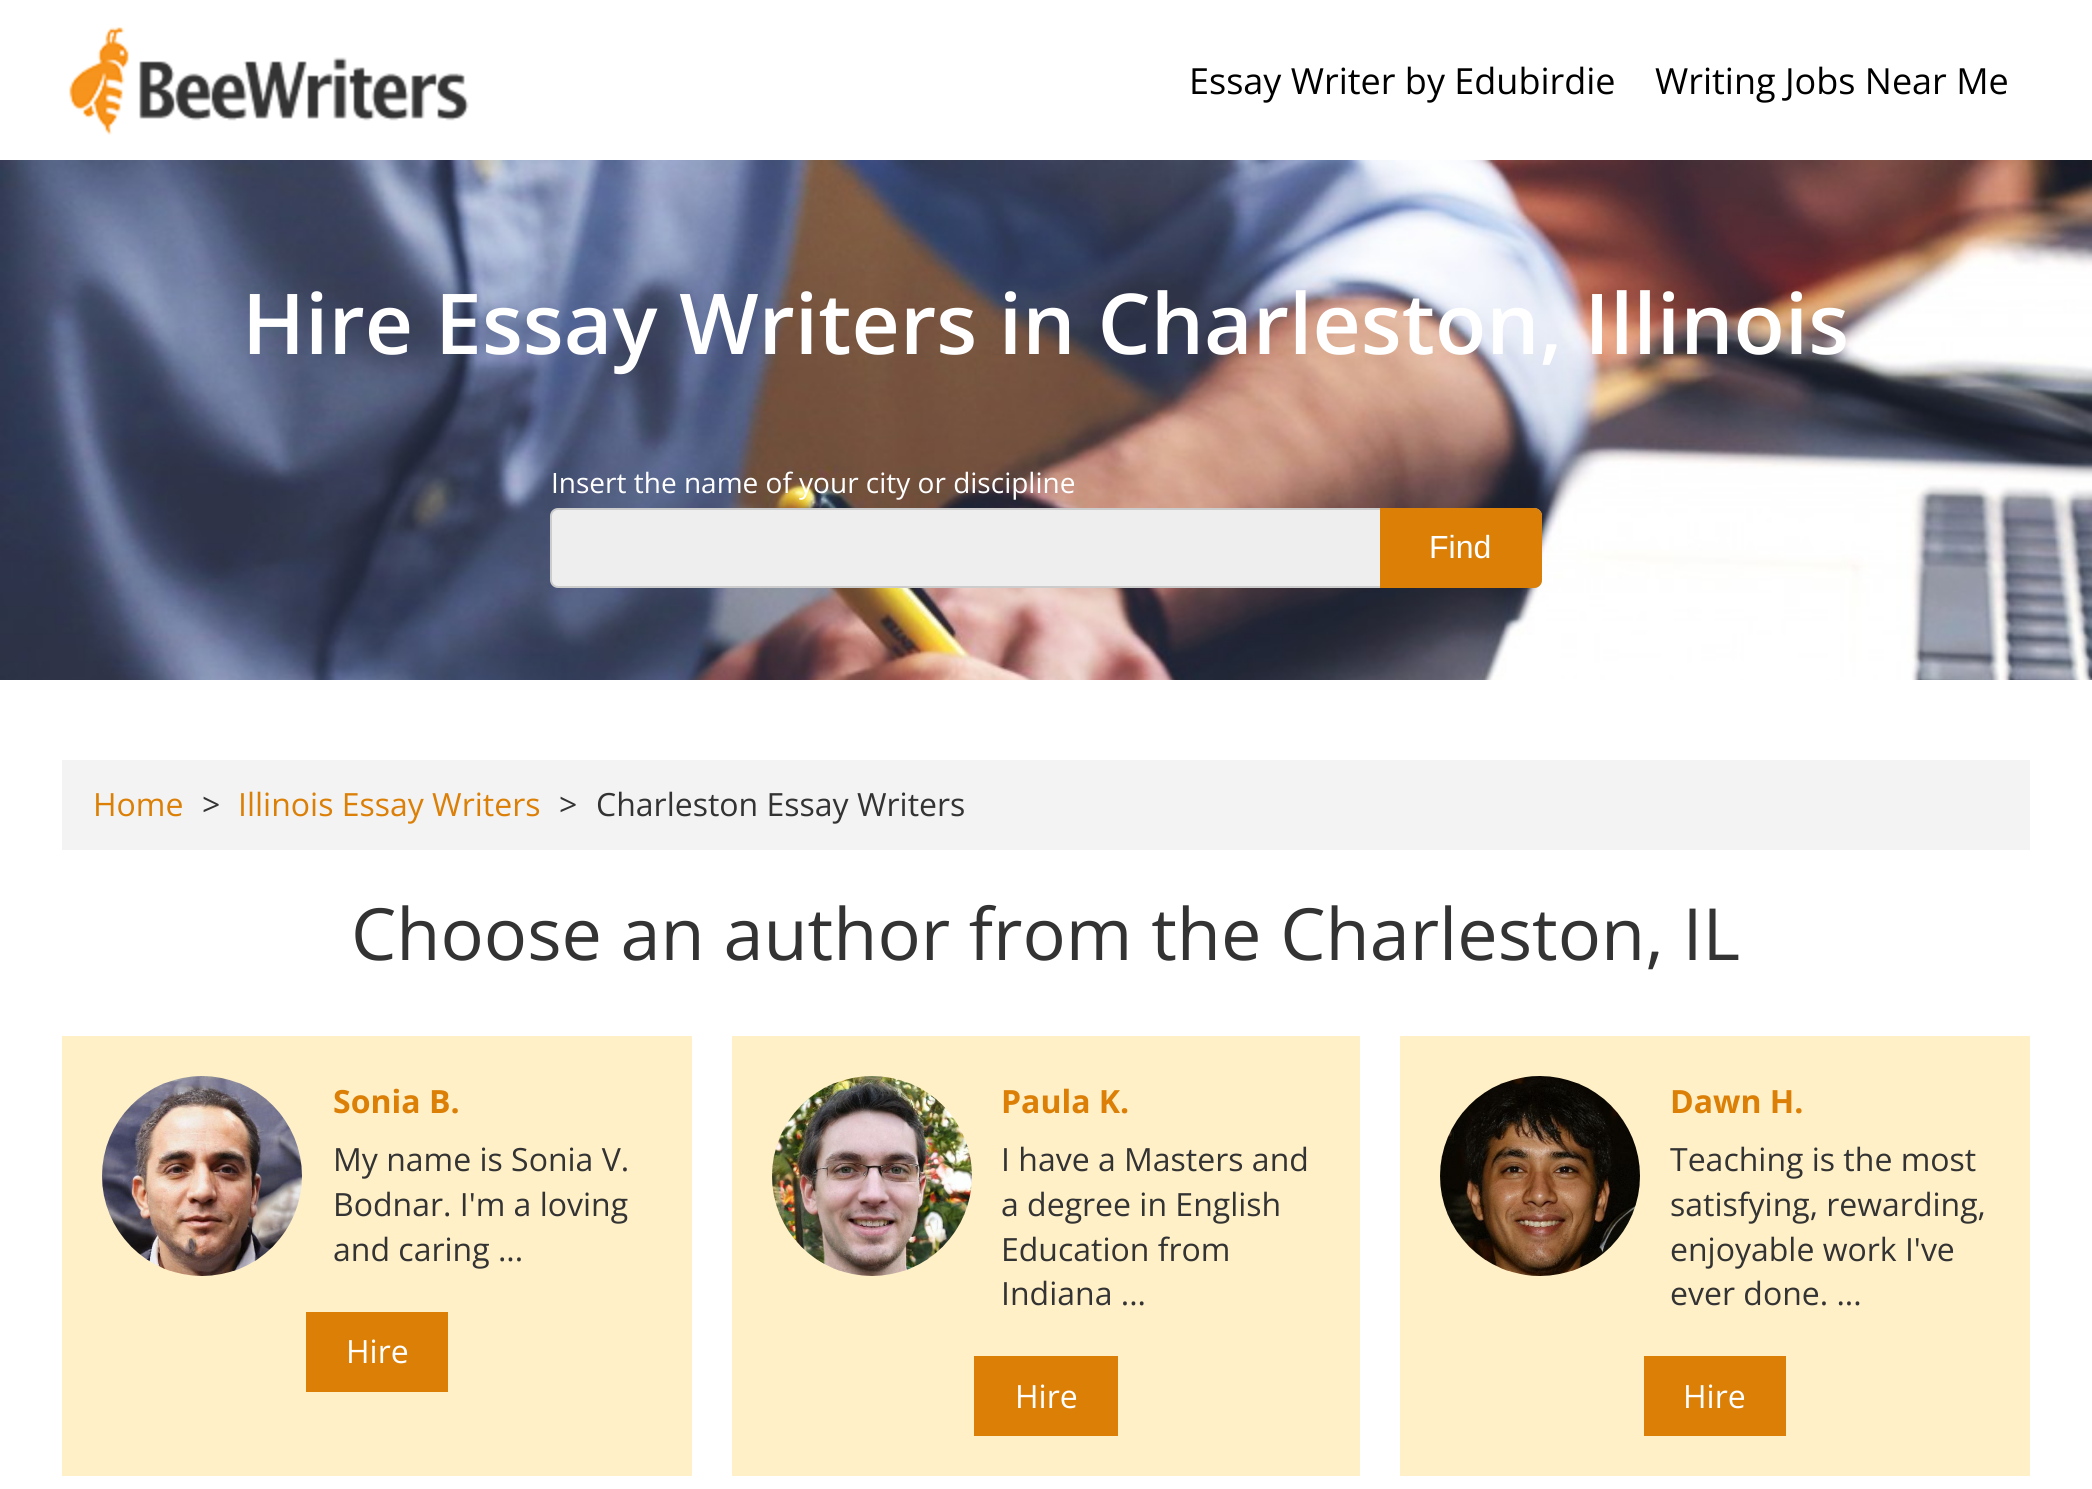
#include <cairo/cairo.h>
#include <math.h>
#include <stddef.h>

static cairo_t *cr;

static void use_color(int r, int g, int b) {
  cairo_set_source_rgb(cr, r / 255.0, g / 255.0, b / 255.0);
}

static void text(double x, double y, const char *s, const char *family, double size, int italic, int bold, int r, int g, int b) {
  cairo_select_font_face(cr, family, italic ? CAIRO_FONT_SLANT_ITALIC : CAIRO_FONT_SLANT_NORMAL,
    bold ? CAIRO_FONT_WEIGHT_BOLD : CAIRO_FONT_WEIGHT_NORMAL);
  cairo_set_font_size(cr, size);
  use_color(r, g, b);
  cairo_move_to(cr, x, y);
  cairo_show_text(cr, s);
}

static void box(double x, double y, double w, double h, int r, int g, int b) {
  use_color(r, g, b);
  cairo_rectangle(cr, x, y, w, h);
  cairo_fill(cr);
}

static void round_rect(double x, double y, double w, double h, double r) {
  cairo_new_sub_path(cr);
  cairo_arc(cr, x + w - r, y + h - r, r, 0, M_PI / 2);
  cairo_arc(cr, x + r, y + h - r, r, M_PI / 2, M_PI);
  cairo_arc(cr, x + r, y + r, r, M_PI, 1.5 * M_PI);
  cairo_arc(cr, x + w - r, y + r, r, 1.5 * M_PI, 2 * M_PI);
  cairo_close_path(cr);
}

static void picture(const char *path, double x, double y, double w, double h) {
  cairo_surface_t *image = cairo_image_surface_create_from_png(path);
  cairo_save(cr);
  cairo_set_source_surface(cr, image, x, y);
  cairo_rectangle(cr, x, y, w, h);
  cairo_fill(cr);
  cairo_restore(cr);
  cairo_surface_destroy(image);
}

static void draw(void) {
  use_color(255, 255, 255);
  cairo_paint(cr);
  picture("img_01.png", 69, 27, 400, 108);
  picture("img_02.png", 0, 160, 2092, 520);
  use_color(238, 238, 238);
  round_rect(551, 509, 990, 78, 7);
  cairo_fill_preserve(cr);
  use_color(204, 204, 204);
  cairo_stroke(cr);
  use_color(219, 127, 6);
  cairo_new_path(cr);
  cairo_move_to(cr, 1380, 508);
  cairo_line_to(cr, 1534, 508);
  cairo_curve_to(cr, 1538.5, 508, 1542, 511.5, 1542, 516);
  cairo_line_to(cr, 1542, 580);
  cairo_curve_to(cr, 1542, 584.5, 1538.5, 588, 1534, 588);
  cairo_line_to(cr, 1380, 588);
  cairo_close_path(cr);
  cairo_fill(cr);
  box(62, 760, 1968, 90, 243, 243, 243);
  box(62, 1036, 630, 440, 255, 240, 199);
  picture("img_03.png", 102, 1076, 200, 200);
  box(306, 1312, 142, 80, 219, 127, 6);
  box(732, 1036, 628, 440, 255, 240, 199);
  picture("img_04.png", 772, 1076, 200, 200);
  box(974, 1356, 144, 80, 219, 127, 6);
  box(1400, 1036, 630, 440, 255, 240, 199);
  picture("img_05.png", 1440, 1076, 200, 200);
  box(1644, 1356, 142, 80, 219, 127, 6);
  text(1189, 94, "Essay Writer by Edubirdie", "Open Sans", 36, 0, 0, 0, 0, 0);
  text(1655, 94, "Writing Jobs Near Me", "Open Sans", 36, 0, 0, 0, 0, 0);
  text(242, 354, "Hire Essay Writers in Charleston, Illinois", "Open Sans SemiBold", 84, 0, 0, 255, 255, 255);
  text(551, 493, "Insert the name of your city or discipline", "Open Sans", 28, 0, 0, 255, 255, 255);
  text(1429, 558, "Find", "Liberation Sans", 32, 0, 0, 255, 255, 255);
  text(93, 816, "Home", "Open Sans", 32, 0, 0, 219, 127, 6);
  text(202, 816, ">", "Open Sans", 32, 0, 0, 51, 51, 51);
  text(238, 816, "Illinois Essay Writers", "Open Sans", 32, 0, 0, 219, 127, 6);
  text(559, 816, ">", "Open Sans", 32, 0, 0, 51, 51, 51);
  text(596, 816, "Charleston Essay Writers", "Open Sans", 32, 0, 0, 51, 51, 51);
  text(351, 960, "Choose an author from the Charleston, IL", "Open Sans", 72, 0, 0, 51, 51, 51);
  text(333, 1113, "Sonia B.", "Open Sans", 32, 0, 1, 219, 127, 6);
  text(333, 1171, "My name is Sonia V.", "Open Sans", 32, 0, 0, 51, 51, 51);
  text(333, 1216, "Bodnar. I'm a loving", "Open Sans", 32, 0, 0, 51, 51, 51);
  text(333, 1261, "and caring ...", "Open Sans", 32, 0, 0, 51, 51, 51);
  text(346, 1363, "Hire", "Open Sans", 32, 0, 0, 255, 255, 255);
  text(1001, 1113, "Paula K.", "Open Sans", 32, 0, 1, 219, 127, 6);
  text(1001, 1171, "I have a Masters and", "Open Sans", 32, 0, 0, 51, 51, 51);
  text(1001, 1216, "a degree in English", "Open Sans", 32, 0, 0, 51, 51, 51);
  text(1001, 1261, "Education from", "Open Sans", 32, 0, 0, 51, 51, 51);
  text(1001, 1305, "Indiana ...", "Open Sans", 32, 0, 0, 51, 51, 51);
  text(1015, 1408, "Hire", "Open Sans", 32, 0, 0, 255, 255, 255);
  text(1670, 1113, "Dawn H.", "Open Sans", 32, 0, 1, 219, 127, 6);
  text(1670, 1171, "Teaching is the most", "Open Sans", 32, 0, 0, 51, 51, 51);
  text(1670, 1216, "satisfying, rewarding,", "Open Sans", 32, 0, 0, 51, 51, 51);
  text(1670, 1261, "enjoyable work I've", "Open Sans", 32, 0, 0, 51, 51, 51);
  text(1670, 1305, "ever done. ...", "Open Sans", 32, 0, 0, 51, 51, 51);
  text(1683, 1408, "Hire", "Open Sans", 32, 0, 0, 255, 255, 255);
}

int main(void) {
  cairo_surface_t *surface = cairo_image_surface_create(CAIRO_FORMAT_RGB24, 2092, 1489);
  cr = cairo_create(surface);
  cairo_font_options_t *options = cairo_font_options_create();
  cairo_font_options_set_hint_metrics(options, CAIRO_HINT_METRICS_OFF);
  cairo_font_options_set_hint_style(options, CAIRO_HINT_STYLE_NONE);
  cairo_set_font_options(cr, options);
  cairo_set_miter_limit(cr, 4);
  draw();
  cairo_surface_write_to_png(surface, "out.png");
  cairo_font_options_destroy(options);
  cairo_destroy(cr);
  cairo_surface_destroy(surface);
  return 0;
}
